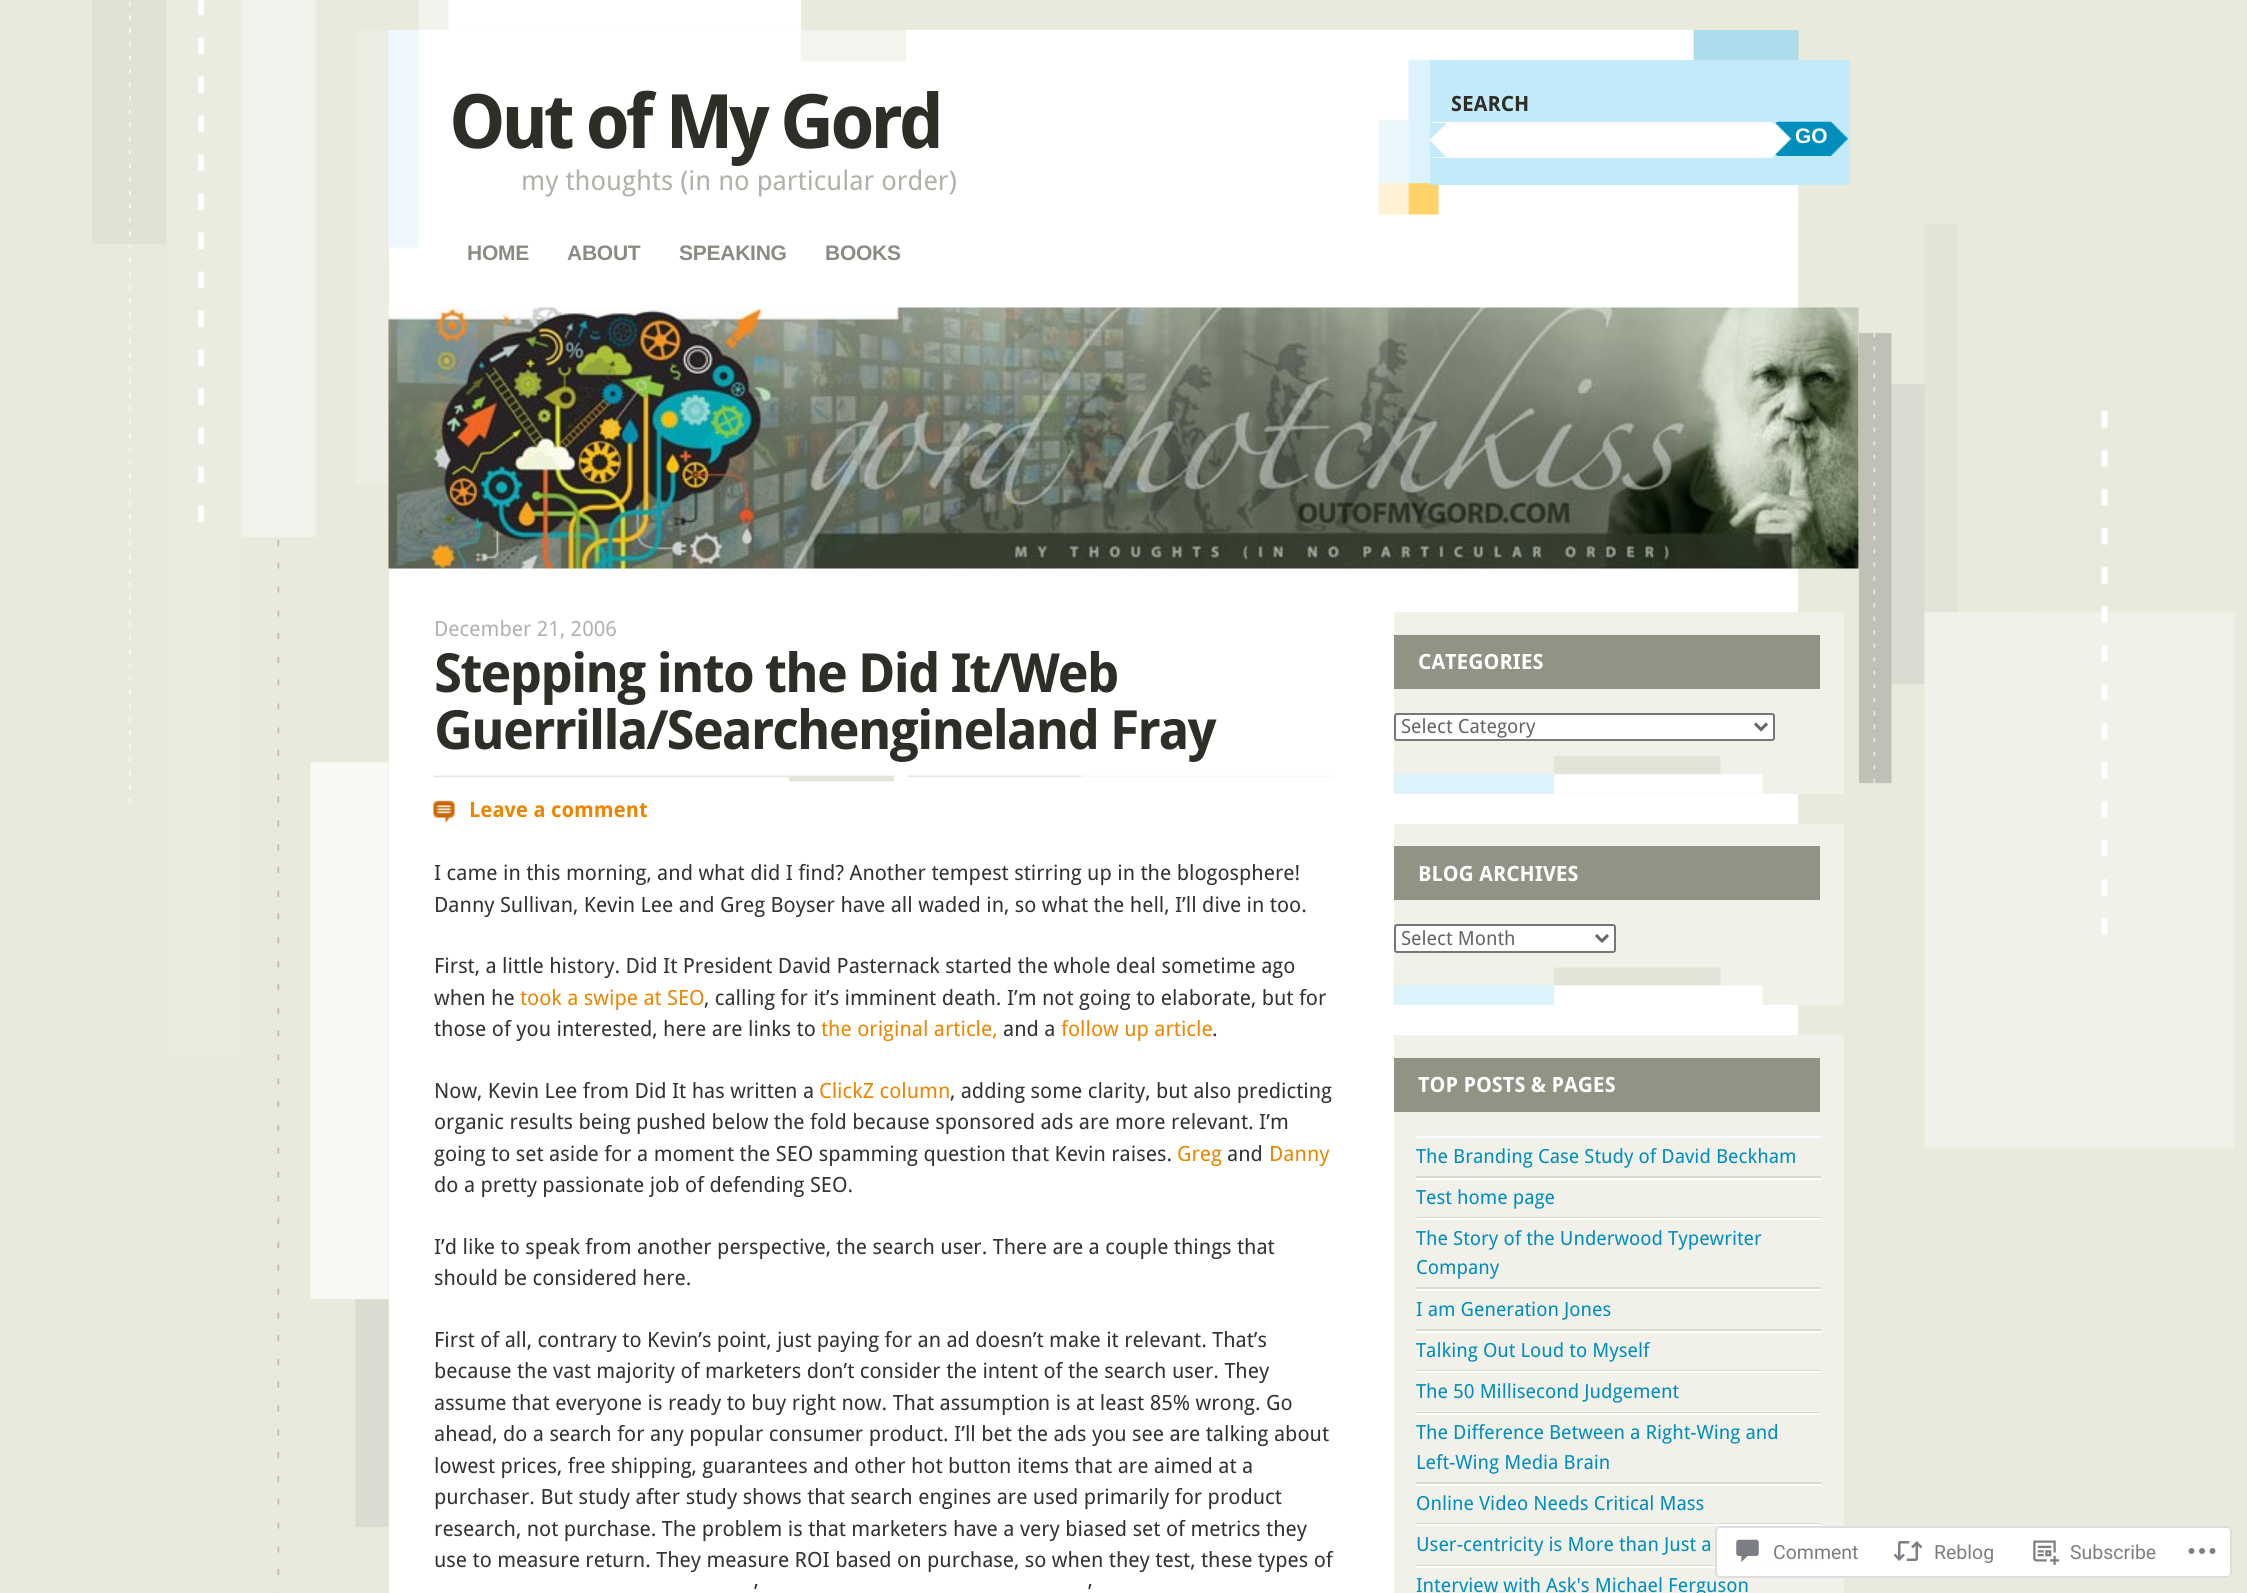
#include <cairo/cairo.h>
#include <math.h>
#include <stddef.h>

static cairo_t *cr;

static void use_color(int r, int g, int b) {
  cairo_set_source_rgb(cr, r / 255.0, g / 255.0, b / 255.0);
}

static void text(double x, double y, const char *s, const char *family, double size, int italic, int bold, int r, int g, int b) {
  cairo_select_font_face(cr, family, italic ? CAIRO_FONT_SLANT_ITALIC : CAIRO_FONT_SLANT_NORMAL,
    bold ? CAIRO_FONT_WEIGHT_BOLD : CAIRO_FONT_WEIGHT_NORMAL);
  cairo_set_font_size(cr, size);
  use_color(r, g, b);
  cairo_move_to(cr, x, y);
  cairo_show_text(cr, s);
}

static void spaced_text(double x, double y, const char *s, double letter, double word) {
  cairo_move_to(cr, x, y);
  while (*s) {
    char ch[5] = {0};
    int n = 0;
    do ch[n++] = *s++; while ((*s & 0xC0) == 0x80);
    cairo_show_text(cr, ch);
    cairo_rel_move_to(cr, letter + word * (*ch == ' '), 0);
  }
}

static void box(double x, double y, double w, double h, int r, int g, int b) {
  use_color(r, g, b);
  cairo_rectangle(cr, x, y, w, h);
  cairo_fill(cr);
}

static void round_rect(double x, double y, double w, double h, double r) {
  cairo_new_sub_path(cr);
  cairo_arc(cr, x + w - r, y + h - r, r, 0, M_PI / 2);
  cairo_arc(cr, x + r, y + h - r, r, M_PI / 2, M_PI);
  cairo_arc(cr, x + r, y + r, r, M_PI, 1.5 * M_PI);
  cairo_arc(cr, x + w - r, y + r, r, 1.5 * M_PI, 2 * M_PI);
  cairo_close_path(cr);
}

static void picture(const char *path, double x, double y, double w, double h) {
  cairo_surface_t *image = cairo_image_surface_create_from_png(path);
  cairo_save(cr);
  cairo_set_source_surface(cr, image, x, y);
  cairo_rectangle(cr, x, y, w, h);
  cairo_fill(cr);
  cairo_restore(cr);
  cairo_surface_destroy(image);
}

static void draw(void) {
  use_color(233, 233, 220);
  cairo_paint(cr);
  picture("img_01.png", 92, 0, 2143, 1593);
  box(389, 30, 1409, 1563, 255, 255, 255);
  box(1858, 332, 1, 452, 233, 233, 220);
  picture("img_02.png", 388, 30, 518, 218);
  picture("img_03.png", 1378, 30, 421, 185);
  box(1430, 60, 420, 125, 195, 234, 248);
  use_color(255, 255, 255);
  round_rect(1430, 122, 345, 36, 5);
  cairo_fill(cr);
  picture("img_04.png", 1429, 123, 17, 35);
  picture("img_05.png", 1774, 121, 74, 35);
  picture("img_06.png", 388, 307, 1471, 262);
  picture("img_07.png", 433, 775, 899, 7);
  picture("img_08.png", 433, 800, 22, 22);
  box(1394, 612, 450, 182, 241, 241, 234);
  picture("img_09.png", 1393, 756, 370, 38);
  box(1394, 635, 426, 54, 146, 147, 133);
  use_color(255, 255, 255);
  round_rect(1395, 714, 379, 26, 2);
  cairo_fill_preserve(cr);
  use_color(118, 118, 118);
  cairo_stroke(cr);
  cairo_new_path(cr);
  cairo_move_to(cr, 1755, 723.5);
  cairo_line_to(cr, 1761, 729.5);
  cairo_line_to(cr, 1767, 723.5);
  use_color(102, 102, 102);
  cairo_set_line_width(cr, 3);
  cairo_stroke(cr);
  box(1394, 824, 450, 181, 241, 241, 234);
  picture("img_10.png", 1393, 967, 370, 38);
  box(1394, 846, 426, 54, 146, 147, 133);
  use_color(255, 255, 255);
  round_rect(1395, 925, 220, 27, 2);
  cairo_fill_preserve(cr);
  use_color(118, 118, 118);
  cairo_set_line_width(cr, 2);
  cairo_stroke(cr);
  cairo_new_path(cr);
  cairo_move_to(cr, 1596, 935);
  cairo_line_to(cr, 1602, 941);
  cairo_line_to(cr, 1608, 935);
  use_color(102, 102, 102);
  cairo_set_line_width(cr, 3);
  cairo_stroke(cr);
  box(1394, 1035, 450, 558, 241, 241, 234);
  box(1394, 1058, 426, 54, 146, 147, 133);
  box(1416, 1136, 405, 2, 255, 255, 255);
  box(1416, 1176, 405, 2, 218, 218, 205);
  box(1416, 1178, 405, 2, 255, 255, 255);
  box(1416, 1217, 405, 1, 218, 218, 205);
  box(1416, 1218, 405, 2, 255, 255, 255);
  box(1416, 1287, 405, 2, 218, 218, 205);
  box(1416, 1289, 405, 2, 255, 255, 255);
  box(1416, 1329, 405, 2, 218, 218, 205);
  box(1416, 1331, 405, 2, 255, 255, 255);
  box(1416, 1370, 405, 1, 218, 218, 205);
  box(1416, 1371, 405, 2, 255, 255, 255);
  box(1416, 1412, 405, 1, 218, 218, 205);
  box(1416, 1413, 405, 2, 255, 255, 255);
  box(1416, 1482, 405, 2, 218, 218, 205);
  box(1416, 1484, 405, 2, 255, 255, 255);
  box(1416, 1523, 405, 1, 218, 218, 205);
  box(1416, 1524, 405, 2, 255, 255, 255);
  box(1416, 1565, 405, 1, 218, 218, 205);
  box(1416, 1566, 405, 2, 255, 255, 255);
  cairo_select_font_face(cr, "Droid Sans", CAIRO_FONT_SLANT_NORMAL, CAIRO_FONT_WEIGHT_BOLD);
  cairo_set_font_size(cr, 75);
  use_color(46, 46, 41);
  spaced_text(449, 148, "Out of My Gord", -4.5, 0);
  text(521, 190, "my thoughts (in no particular order)", "Droid Sans", 27, 0, 0, 176, 177, 168);
  cairo_select_font_face(cr, "Liberation Sans", CAIRO_FONT_SLANT_NORMAL, CAIRO_FONT_WEIGHT_BOLD);
  cairo_set_font_size(cr, 21);
  use_color(138, 139, 130);
  spaced_text(467, 260, "HOME", -0.25, 0);
  spaced_text(567, 260, "ABOUT", -0.25, 0);
  spaced_text(679, 260, "SPEAKING", -0.25, 0);
  spaced_text(825, 260, "BOOKS", -0.25, 0);
  text(1451, 111, "SEARCH", "Droid Sans", 21, 0, 1, 46, 46, 41);
  text(1795, 143, "GO", "Liberation Sans", 21, 0, 1, 255, 255, 255);
  text(434, 636, "December 21, 2006", "Droid Sans", 21, 0, 0, 177, 177, 177);
  cairo_select_font_face(cr, "Droid Sans", CAIRO_FONT_SLANT_NORMAL, CAIRO_FONT_WEIGHT_BOLD);
  cairo_set_font_size(cr, 54);
  use_color(46, 46, 41);
  spaced_text(434, 692, "Stepping into the Did It/Web", -2.15, 0);
  spaced_text(434, 749, "Guerrilla/Searchengineland Fray", -2.15, 0);
  text(469, 817, "Leave a comment", "Droid Sans", 21, 0, 1, 236, 133, 0);
  text(434, 880, "I came in this morning, and what did I find? Another tempest stirring up in the blogosphere!", "Droid Sans", 21, 0, 0, 51, 51, 51);
  text(434, 912, "Danny Sullivan, Kevin Lee and Greg Boyser have all waded in, so what the hell, I’ll dive in too.", "Droid Sans", 21, 0, 0, 51, 51, 51);
  text(434, 973, "First, a little history. Did It President David Pasternack started the whole deal sometime ago", "Droid Sans", 21, 0, 0, 51, 51, 51);
  text(434, 1005, "when he", "Droid Sans", 21, 0, 0, 51, 51, 51);
  text(520, 1005, "took a swipe at SEO", "Droid Sans", 21, 0, 0, 236, 133, 0);
  text(704, 1005, ", calling for it’s imminent death. I’m not going to elaborate, but for", "Droid Sans", 21, 0, 0, 51, 51, 51);
  text(434, 1036, "those of you interested, here are links to", "Droid Sans", 21, 0, 0, 51, 51, 51);
  text(821, 1036, "the original article,", "Droid Sans", 21, 0, 0, 236, 133, 0);
  text(1003, 1036, "and a", "Droid Sans", 21, 0, 0, 51, 51, 51);
  text(1061, 1036, "follow up article", "Droid Sans", 21, 0, 0, 236, 133, 0);
  text(1212, 1036, ".", "Droid Sans", 21, 0, 0, 51, 51, 51);
  text(434, 1098, "Now, Kevin Lee from Did It has written a", "Droid Sans", 21, 0, 0, 51, 51, 51);
  text(819, 1098, "ClickZ column", "Droid Sans", 21, 0, 0, 236, 133, 0);
  text(950, 1098, ", adding some clarity, but also predicting", "Droid Sans", 21, 0, 0, 51, 51, 51);
  text(434, 1129, "organic results being pushed below the fold because sponsored ads are more relevant. I’m", "Droid Sans", 21, 0, 0, 51, 51, 51);
  text(434, 1161, "going to set aside for a moment the SEO spamming question that Kevin raises.", "Droid Sans", 21, 0, 0, 51, 51, 51);
  text(1177, 1161, "Greg", "Droid Sans", 21, 0, 0, 236, 133, 0);
  text(1227, 1161, "and", "Droid Sans", 21, 0, 0, 51, 51, 51);
  text(1269, 1161, "Danny", "Droid Sans", 21, 0, 0, 236, 133, 0);
  text(434, 1192, "do a pretty passionate job of defending SEO.", "Droid Sans", 21, 0, 0, 51, 51, 51);
  text(434, 1254, "I’d like to speak from another perspective, the search user. There are a couple things that", "Droid Sans", 21, 0, 0, 51, 51, 51);
  text(434, 1285, "should be considered here.", "Droid Sans", 21, 0, 0, 51, 51, 51);
  text(434, 1347, "First of all, contrary to Kevin’s point, just paying for an ad doesn’t make it relevant. That’s", "Droid Sans", 21, 0, 0, 51, 51, 51);
  text(434, 1378, "because the vast majority of marketers don’t consider the intent of the search user. They", "Droid Sans", 21, 0, 0, 51, 51, 51);
  text(434, 1410, "assume that everyone is ready to buy right now. That assumption is at least 85% wrong. Go", "Droid Sans", 21, 0, 0, 51, 51, 51);
  text(434, 1441, "ahead, do a search for any popular consumer product. I’ll bet the ads you see are talking about", "Droid Sans", 21, 0, 0, 51, 51, 51);
  text(434, 1473, "lowest prices, free shipping, guarantees and other hot button items that are aimed at a", "Droid Sans", 21, 0, 0, 51, 51, 51);
  text(434, 1504, "purchaser. But study after study shows that search engines are used primarily for product", "Droid Sans", 21, 0, 0, 51, 51, 51);
  text(434, 1536, "research, not purchase. The problem is that marketers have a very biased set of metrics they", "Droid Sans", 21, 0, 0, 51, 51, 51);
  text(434, 1567, "use to measure return. They measure ROI based on purchase, so when they test, these types of", "Droid Sans", 21, 0, 0, 51, 51, 51);
  text(754, 1599, "’", "Droid Sans", 21, 0, 0, 51, 51, 51);
  text(1088, 1599, "’", "Droid Sans", 21, 0, 0, 51, 51, 51);
  text(1418, 669, "CATEGORIES", "Droid Sans", 21, 0, 1, 255, 255, 255);
  text(1401, 733, "Select Category", "Droid Sans", 19.5, 0, 0, 102, 102, 102);
  text(1418, 881, "BLOG ARCHIVES", "Droid Sans", 21, 0, 1, 255, 255, 255);
  text(1401, 945, "Select Month", "Droid Sans", 19.5, 0, 0, 102, 102, 102);
  text(1418, 1092, "TOP POSTS & PAGES", "Droid Sans", 21, 0, 1, 255, 255, 255);
  text(1416, 1163, "The Branding Case Study of David Beckham", "Droid Sans", 19.5, 0, 0, 0, 142, 188);
  text(1416, 1204, "Test home page", "Droid Sans", 19.5, 0, 0, 0, 142, 188);
  text(1416, 1245, "The Story of the Underwood Typewriter", "Droid Sans", 19.5, 0, 0, 0, 142, 188);
  text(1416, 1274, "Company", "Droid Sans", 19.5, 0, 0, 0, 142, 188);
  text(1416, 1316, "I am Generation Jones", "Droid Sans", 19.5, 0, 0, 0, 142, 188);
  text(1416, 1357, "Talking Out Loud to Myself", "Droid Sans", 19.5, 0, 0, 0, 142, 188);
  text(1416, 1398, "The 50 Millisecond Judgement", "Droid Sans", 19.5, 0, 0, 0, 142, 188);
  text(1416, 1439, "The Difference Between a Right-Wing and", "Droid Sans", 19.5, 0, 0, 0, 142, 188);
  text(1416, 1469, "Left-Wing Media Brain", "Droid Sans", 19.5, 0, 0, 0, 142, 188);
  text(1416, 1510, "Online Video Needs Critical Mass", "Droid Sans", 19.5, 0, 0, 0, 142, 188);
  text(1416, 1551, "User-centricity is More than Just a", "Droid Sans", 19.5, 0, 0, 0, 142, 188);
  text(1416, 1592, "Interview with Ask's Michael Ferguson", "Droid Sans", 19.5, 0, 0, 0, 142, 188);
  cairo_set_source_rgba(cr, 1, 1, 1, 0.98);
  round_rect(1715, 1526, 517, 52, 5);
  cairo_fill(cr);
  round_rect(1716, 1527, 515, 50, 4);
  cairo_set_source_rgba(cr, 0.863, 0.863, 0.871, 0.98);
  cairo_set_line_width(cr, 2);
  cairo_stroke(cr);
  picture("img_11.png", 1736, 1539, 23, 24);
  text(1773, 1559, "Comment", "Roboto", 19.5, 0, 0, 123, 127, 132);
  picture("img_12.png", 1893, 1541, 30, 20);
  text(1934, 1559, "Reblog", "Roboto", 19.5, 0, 0, 123, 127, 132);
  picture("img_13.png", 2033, 1540, 27, 25);
  text(2070, 1559, "Subscribe", "Roboto", 19.5, 0, 0, 123, 127, 132);
  picture("img_14.png", 2188, 1548, 28, 6);
}

int main(void) {
  cairo_surface_t *surface = cairo_image_surface_create(CAIRO_FORMAT_RGB24, 2247, 1593);
  cr = cairo_create(surface);
  cairo_font_options_t *options = cairo_font_options_create();
  cairo_font_options_set_hint_metrics(options, CAIRO_HINT_METRICS_OFF);
  cairo_font_options_set_hint_style(options, CAIRO_HINT_STYLE_NONE);
  cairo_set_font_options(cr, options);
  cairo_set_miter_limit(cr, 4);
  draw();
  cairo_surface_write_to_png(surface, "out.png");
  cairo_font_options_destroy(options);
  cairo_destroy(cr);
  cairo_surface_destroy(surface);
  return 0;
}
